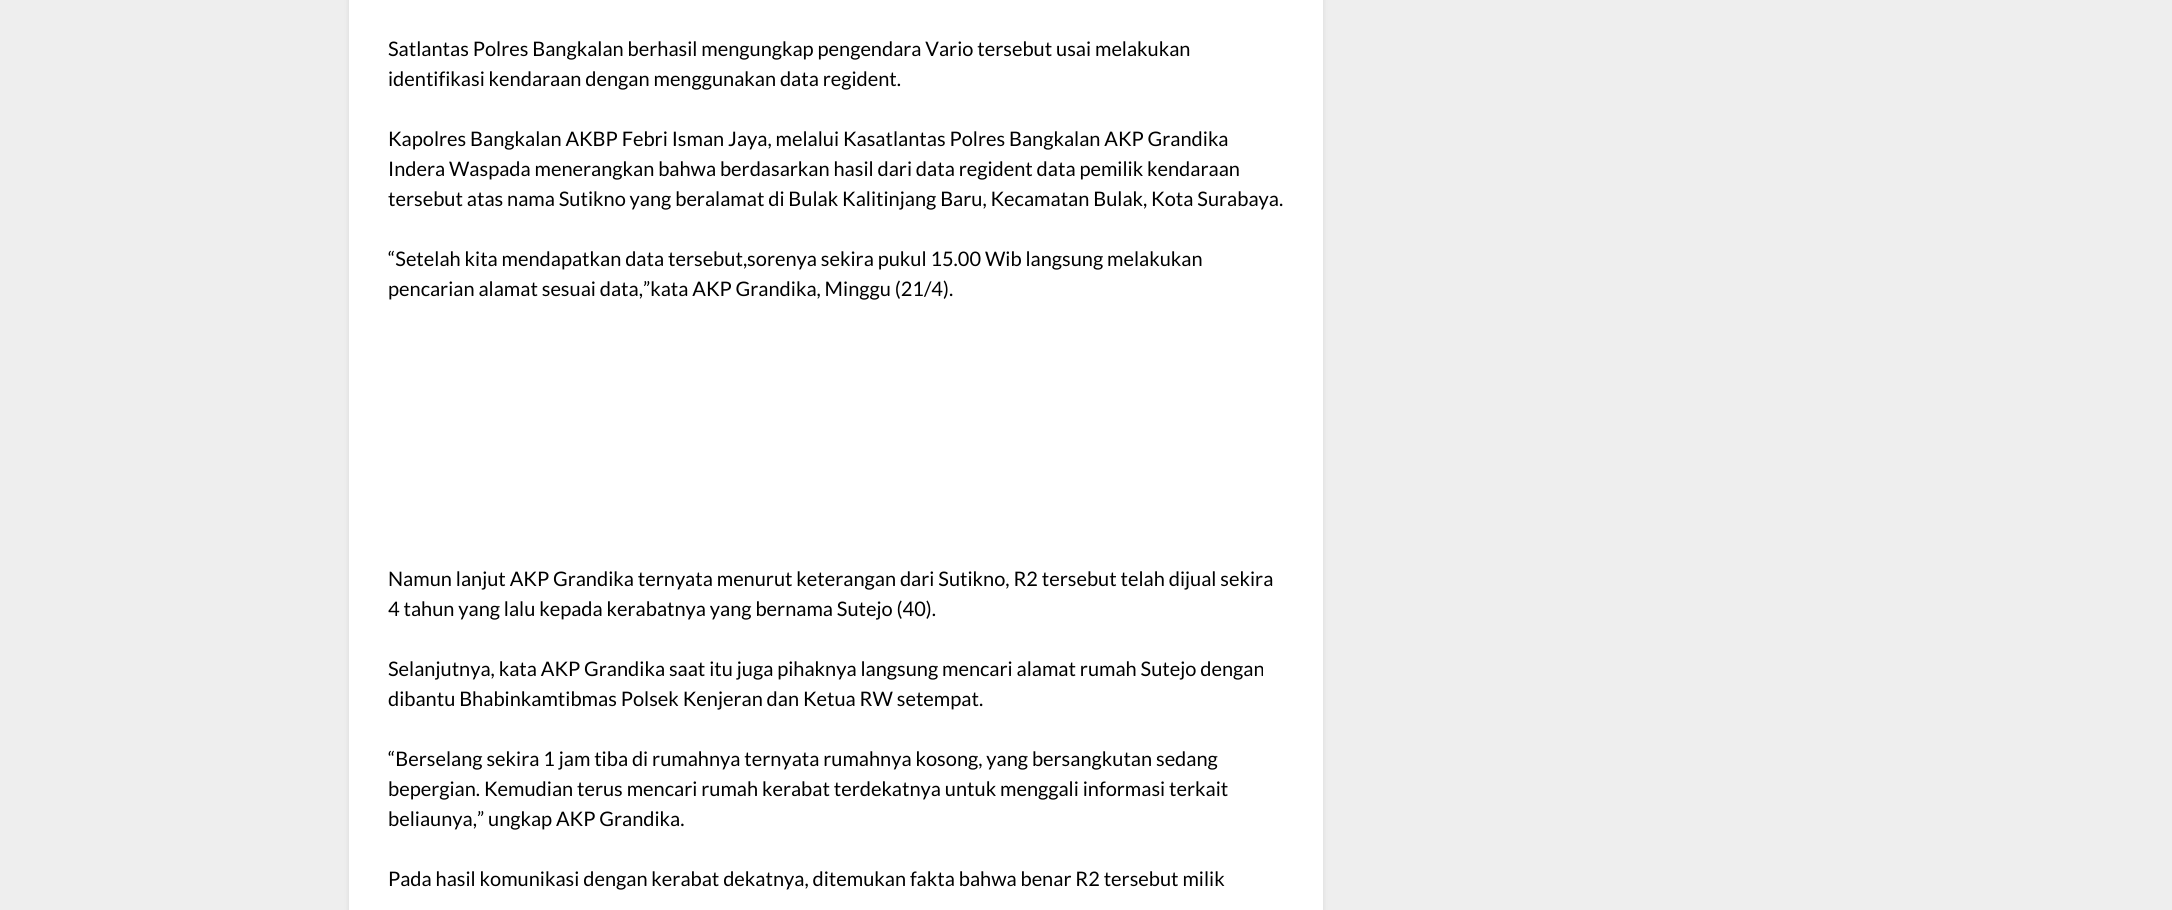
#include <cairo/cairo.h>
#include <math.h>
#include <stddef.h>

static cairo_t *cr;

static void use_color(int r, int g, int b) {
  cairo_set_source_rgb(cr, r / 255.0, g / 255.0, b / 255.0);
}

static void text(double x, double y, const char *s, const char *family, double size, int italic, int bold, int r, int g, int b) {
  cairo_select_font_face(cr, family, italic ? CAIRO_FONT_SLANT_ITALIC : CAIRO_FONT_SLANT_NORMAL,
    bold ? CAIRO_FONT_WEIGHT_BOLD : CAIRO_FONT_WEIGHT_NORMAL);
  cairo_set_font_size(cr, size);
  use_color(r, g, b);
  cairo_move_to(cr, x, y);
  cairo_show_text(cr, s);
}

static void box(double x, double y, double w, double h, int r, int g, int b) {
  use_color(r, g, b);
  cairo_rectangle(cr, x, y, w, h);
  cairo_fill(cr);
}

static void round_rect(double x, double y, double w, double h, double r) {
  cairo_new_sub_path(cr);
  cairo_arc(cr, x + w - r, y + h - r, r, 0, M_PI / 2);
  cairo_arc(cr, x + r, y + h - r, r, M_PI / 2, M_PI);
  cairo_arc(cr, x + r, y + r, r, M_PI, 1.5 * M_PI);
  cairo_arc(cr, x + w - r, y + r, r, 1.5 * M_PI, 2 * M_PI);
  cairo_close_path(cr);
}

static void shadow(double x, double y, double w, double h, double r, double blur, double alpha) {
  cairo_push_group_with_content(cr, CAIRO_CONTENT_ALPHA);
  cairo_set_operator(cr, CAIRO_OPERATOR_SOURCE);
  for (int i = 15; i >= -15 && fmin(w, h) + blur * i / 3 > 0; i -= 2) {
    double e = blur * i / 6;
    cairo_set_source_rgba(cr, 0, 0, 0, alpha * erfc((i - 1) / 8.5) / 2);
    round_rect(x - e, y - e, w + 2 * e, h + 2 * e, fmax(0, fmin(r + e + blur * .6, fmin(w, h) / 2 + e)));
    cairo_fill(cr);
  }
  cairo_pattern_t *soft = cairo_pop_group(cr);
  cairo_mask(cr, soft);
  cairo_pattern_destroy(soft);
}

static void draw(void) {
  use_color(238, 238, 238);
  cairo_paint(cr);
  use_color(0, 0, 0);
  shadow(349, -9, 974, 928, 1, 2.5, 0.1);
  box(349, 0, 974, 910, 255, 255, 255);
  text(388, 56, "Satlantas Polres Bangkalan berhasil mengungkap pengendara Vario tersebut usai melakukan", "Lato", 20, 0, 0, 0, 0, 0);
  text(388, 86, "identifikasi kendaraan dengan menggunakan data regident.", "Lato", 20, 0, 0, 0, 0, 0);
  text(388, 146, "Kapolres Bangkalan AKBP Febri Isman Jaya, melalui Kasatlantas Polres Bangkalan AKP Grandika", "Lato", 20, 0, 0, 0, 0, 0);
  text(388, 176, "Indera Waspada menerangkan bahwa berdasarkan hasil dari data regident data pemilik kendaraan", "Lato", 20, 0, 0, 0, 0, 0);
  text(388, 206, "tersebut atas nama Sutikno yang beralamat di Bulak Kalitinjang Baru, Kecamatan Bulak, Kota Surabaya.", "Lato", 20, 0, 0, 0, 0, 0);
  text(388, 266, "“Setelah kita mendapatkan data tersebut,sorenya sekira pukul 15.00 Wib langsung melakukan", "Lato", 20, 0, 0, 0, 0, 0);
  text(388, 296, "pencarian alamat sesuai data,”kata AKP Grandika, Minggu (21/4).", "Lato", 20, 0, 0, 0, 0, 0);
  text(388, 586, "Namun lanjut AKP Grandika ternyata menurut keterangan dari Sutikno, R2 tersebut telah dijual sekira", "Lato", 20, 0, 0, 0, 0, 0);
  text(388, 616, "4 tahun yang lalu kepada kerabatnya yang bernama Sutejo (40).", "Lato", 20, 0, 0, 0, 0, 0);
  text(388, 676, "Selanjutnya, kata AKP Grandika saat itu juga pihaknya langsung mencari alamat rumah Sutejo dengan", "Lato", 20, 0, 0, 0, 0, 0);
  text(388, 706, "dibantu Bhabinkamtibmas Polsek Kenjeran dan Ketua RW setempat.", "Lato", 20, 0, 0, 0, 0, 0);
  text(388, 766, "“Berselang sekira 1 jam tiba di rumahnya ternyata rumahnya kosong, yang bersangkutan sedang", "Lato", 20, 0, 0, 0, 0, 0);
  text(388, 796, "bepergian. Kemudian terus mencari rumah kerabat terdekatnya untuk menggali informasi terkait", "Lato", 20, 0, 0, 0, 0, 0);
  text(388, 826, "beliaunya,” ungkap AKP Grandika.", "Lato", 20, 0, 0, 0, 0, 0);
  text(388, 886, "Pada hasil komunikasi dengan kerabat dekatnya, ditemukan fakta bahwa benar R2 tersebut milik", "Lato", 20, 0, 0, 0, 0, 0);
}

int main(void) {
  cairo_surface_t *surface = cairo_image_surface_create(CAIRO_FORMAT_RGB24, 2172, 910);
  cr = cairo_create(surface);
  cairo_font_options_t *options = cairo_font_options_create();
  cairo_font_options_set_hint_metrics(options, CAIRO_HINT_METRICS_OFF);
  cairo_font_options_set_hint_style(options, CAIRO_HINT_STYLE_NONE);
  cairo_set_font_options(cr, options);
  cairo_set_miter_limit(cr, 4);
  draw();
  cairo_surface_write_to_png(surface, "out.png");
  cairo_font_options_destroy(options);
  cairo_destroy(cr);
  cairo_surface_destroy(surface);
  return 0;
}
